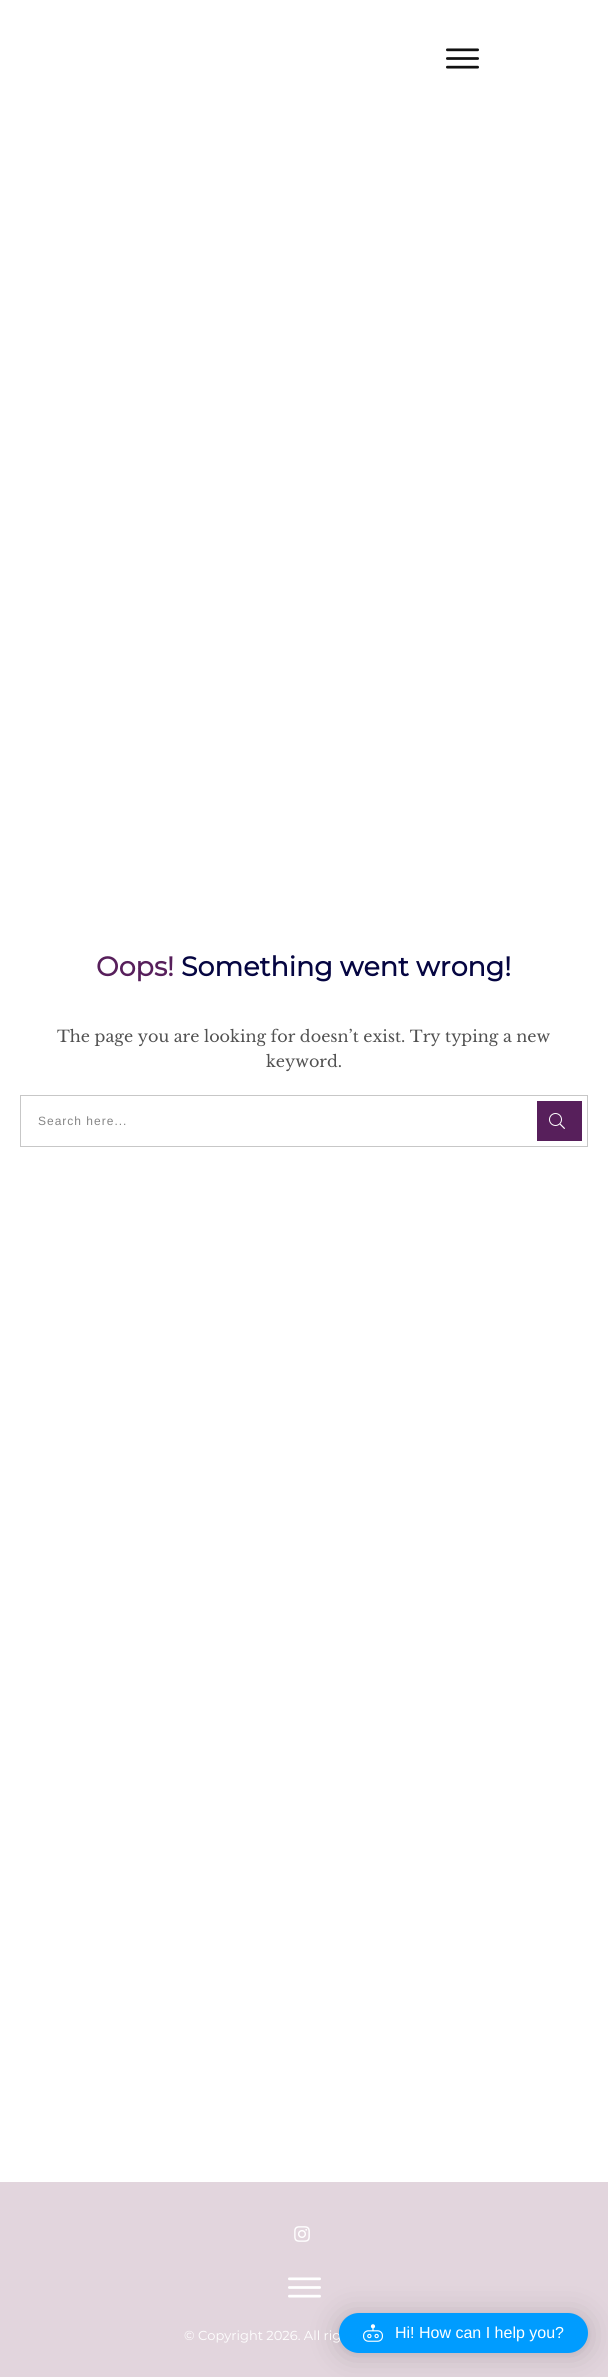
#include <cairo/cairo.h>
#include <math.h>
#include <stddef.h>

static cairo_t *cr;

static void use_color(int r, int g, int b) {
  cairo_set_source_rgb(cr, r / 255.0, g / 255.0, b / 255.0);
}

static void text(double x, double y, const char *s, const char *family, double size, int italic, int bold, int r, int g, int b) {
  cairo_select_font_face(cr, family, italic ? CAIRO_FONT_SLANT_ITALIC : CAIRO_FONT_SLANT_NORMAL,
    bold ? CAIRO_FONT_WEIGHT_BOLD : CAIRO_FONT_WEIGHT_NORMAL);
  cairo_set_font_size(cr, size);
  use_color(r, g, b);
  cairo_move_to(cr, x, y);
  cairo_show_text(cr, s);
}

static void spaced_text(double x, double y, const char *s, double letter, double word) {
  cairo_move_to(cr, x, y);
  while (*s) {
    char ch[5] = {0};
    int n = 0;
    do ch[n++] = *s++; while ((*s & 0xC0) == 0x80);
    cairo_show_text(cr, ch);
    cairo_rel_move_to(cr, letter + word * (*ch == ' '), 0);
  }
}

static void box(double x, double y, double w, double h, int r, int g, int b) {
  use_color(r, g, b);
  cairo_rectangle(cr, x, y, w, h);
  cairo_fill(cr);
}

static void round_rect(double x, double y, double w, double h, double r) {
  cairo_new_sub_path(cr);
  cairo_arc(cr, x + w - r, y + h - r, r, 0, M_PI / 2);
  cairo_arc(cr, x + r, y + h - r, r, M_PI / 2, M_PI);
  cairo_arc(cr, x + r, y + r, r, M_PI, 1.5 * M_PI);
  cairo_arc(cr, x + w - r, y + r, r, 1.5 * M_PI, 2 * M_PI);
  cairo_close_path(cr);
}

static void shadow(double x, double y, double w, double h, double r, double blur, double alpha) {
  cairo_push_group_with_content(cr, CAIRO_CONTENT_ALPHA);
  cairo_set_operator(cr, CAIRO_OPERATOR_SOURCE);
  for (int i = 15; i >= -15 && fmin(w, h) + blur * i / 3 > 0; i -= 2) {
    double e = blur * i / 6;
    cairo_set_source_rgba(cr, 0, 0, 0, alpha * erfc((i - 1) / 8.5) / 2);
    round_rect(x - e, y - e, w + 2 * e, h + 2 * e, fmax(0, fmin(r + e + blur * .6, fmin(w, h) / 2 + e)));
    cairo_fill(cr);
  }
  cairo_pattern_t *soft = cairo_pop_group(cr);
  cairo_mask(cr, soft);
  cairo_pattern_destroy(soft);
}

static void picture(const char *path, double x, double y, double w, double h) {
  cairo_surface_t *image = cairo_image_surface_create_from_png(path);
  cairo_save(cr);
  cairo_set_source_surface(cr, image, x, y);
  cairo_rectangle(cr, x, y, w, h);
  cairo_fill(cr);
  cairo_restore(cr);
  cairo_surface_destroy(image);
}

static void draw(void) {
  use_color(255, 255, 255);
  cairo_paint(cr);
  picture("img_01.png", 446, 48, 33, 21);
  cairo_rectangle(cr, 20.5, 1095.5, 567, 51);
  use_color(199, 199, 199);
  cairo_set_line_width(cr, 1);
  cairo_stroke(cr);
  box(537, 1101, 45, 40, 87, 31, 91);
  picture("img_02.png", 549, 1113, 16, 16);
  box(0, 2182, 608, 195, 226, 213, 221);
  picture("img_03.png", 294, 2226, 16, 16);
  picture("img_04.png", 288, 2277, 33, 21);
  use_color(0, 0, 0);
  shadow(339, 2315, 249, 40, 20, 16, 0.16);
  shadow(339, 2314, 249, 40, 20, 3, 0.06);
  text(96, 976, "Oops!", "Montserrat", 27, 0, 1, 87, 31, 91);
  text(181, 976, "Something went wrong!", "Montserrat", 27, 0, 1, 5, 5, 65);
  text(57, 1042, "The page you are looking for doesn’t exist. Try typing a new", "Libre Baskerville", 16, 0, 0, 81, 81, 81);
  text(266, 1067, "keyword.", "Libre Baskerville", 16, 0, 0, 81, 81, 81);
  cairo_select_font_face(cr, "Liberation Sans", CAIRO_FONT_SLANT_NORMAL, CAIRO_FONT_WEIGHT_NORMAL);
  cairo_set_font_size(cr, 12);
  use_color(133, 133, 133);
  spaced_text(38, 1125, "Search here...", 1, 0);
  text(184, 2340, "© Copyright 2026. All rig", "Montserrat", 13, 0, 0, 255, 255, 255);
  use_color(0, 156, 255);
  round_rect(339, 2313, 249, 40, 20);
  cairo_fill(cr);
  picture("img_05.png", 363, 2324, 20, 18);
  text(395, 2338, "Hi! How can I help you?", "Liberation Sans", 16, 0, 0, 255, 255, 255);
}

int main(void) {
  cairo_surface_t *surface = cairo_image_surface_create(CAIRO_FORMAT_RGB24, 608, 2377);
  cr = cairo_create(surface);
  cairo_font_options_t *options = cairo_font_options_create();
  cairo_font_options_set_hint_metrics(options, CAIRO_HINT_METRICS_OFF);
  cairo_font_options_set_hint_style(options, CAIRO_HINT_STYLE_NONE);
  cairo_set_font_options(cr, options);
  cairo_set_miter_limit(cr, 4);
  draw();
  cairo_surface_write_to_png(surface, "out.png");
  cairo_font_options_destroy(options);
  cairo_destroy(cr);
  cairo_surface_destroy(surface);
  return 0;
}
